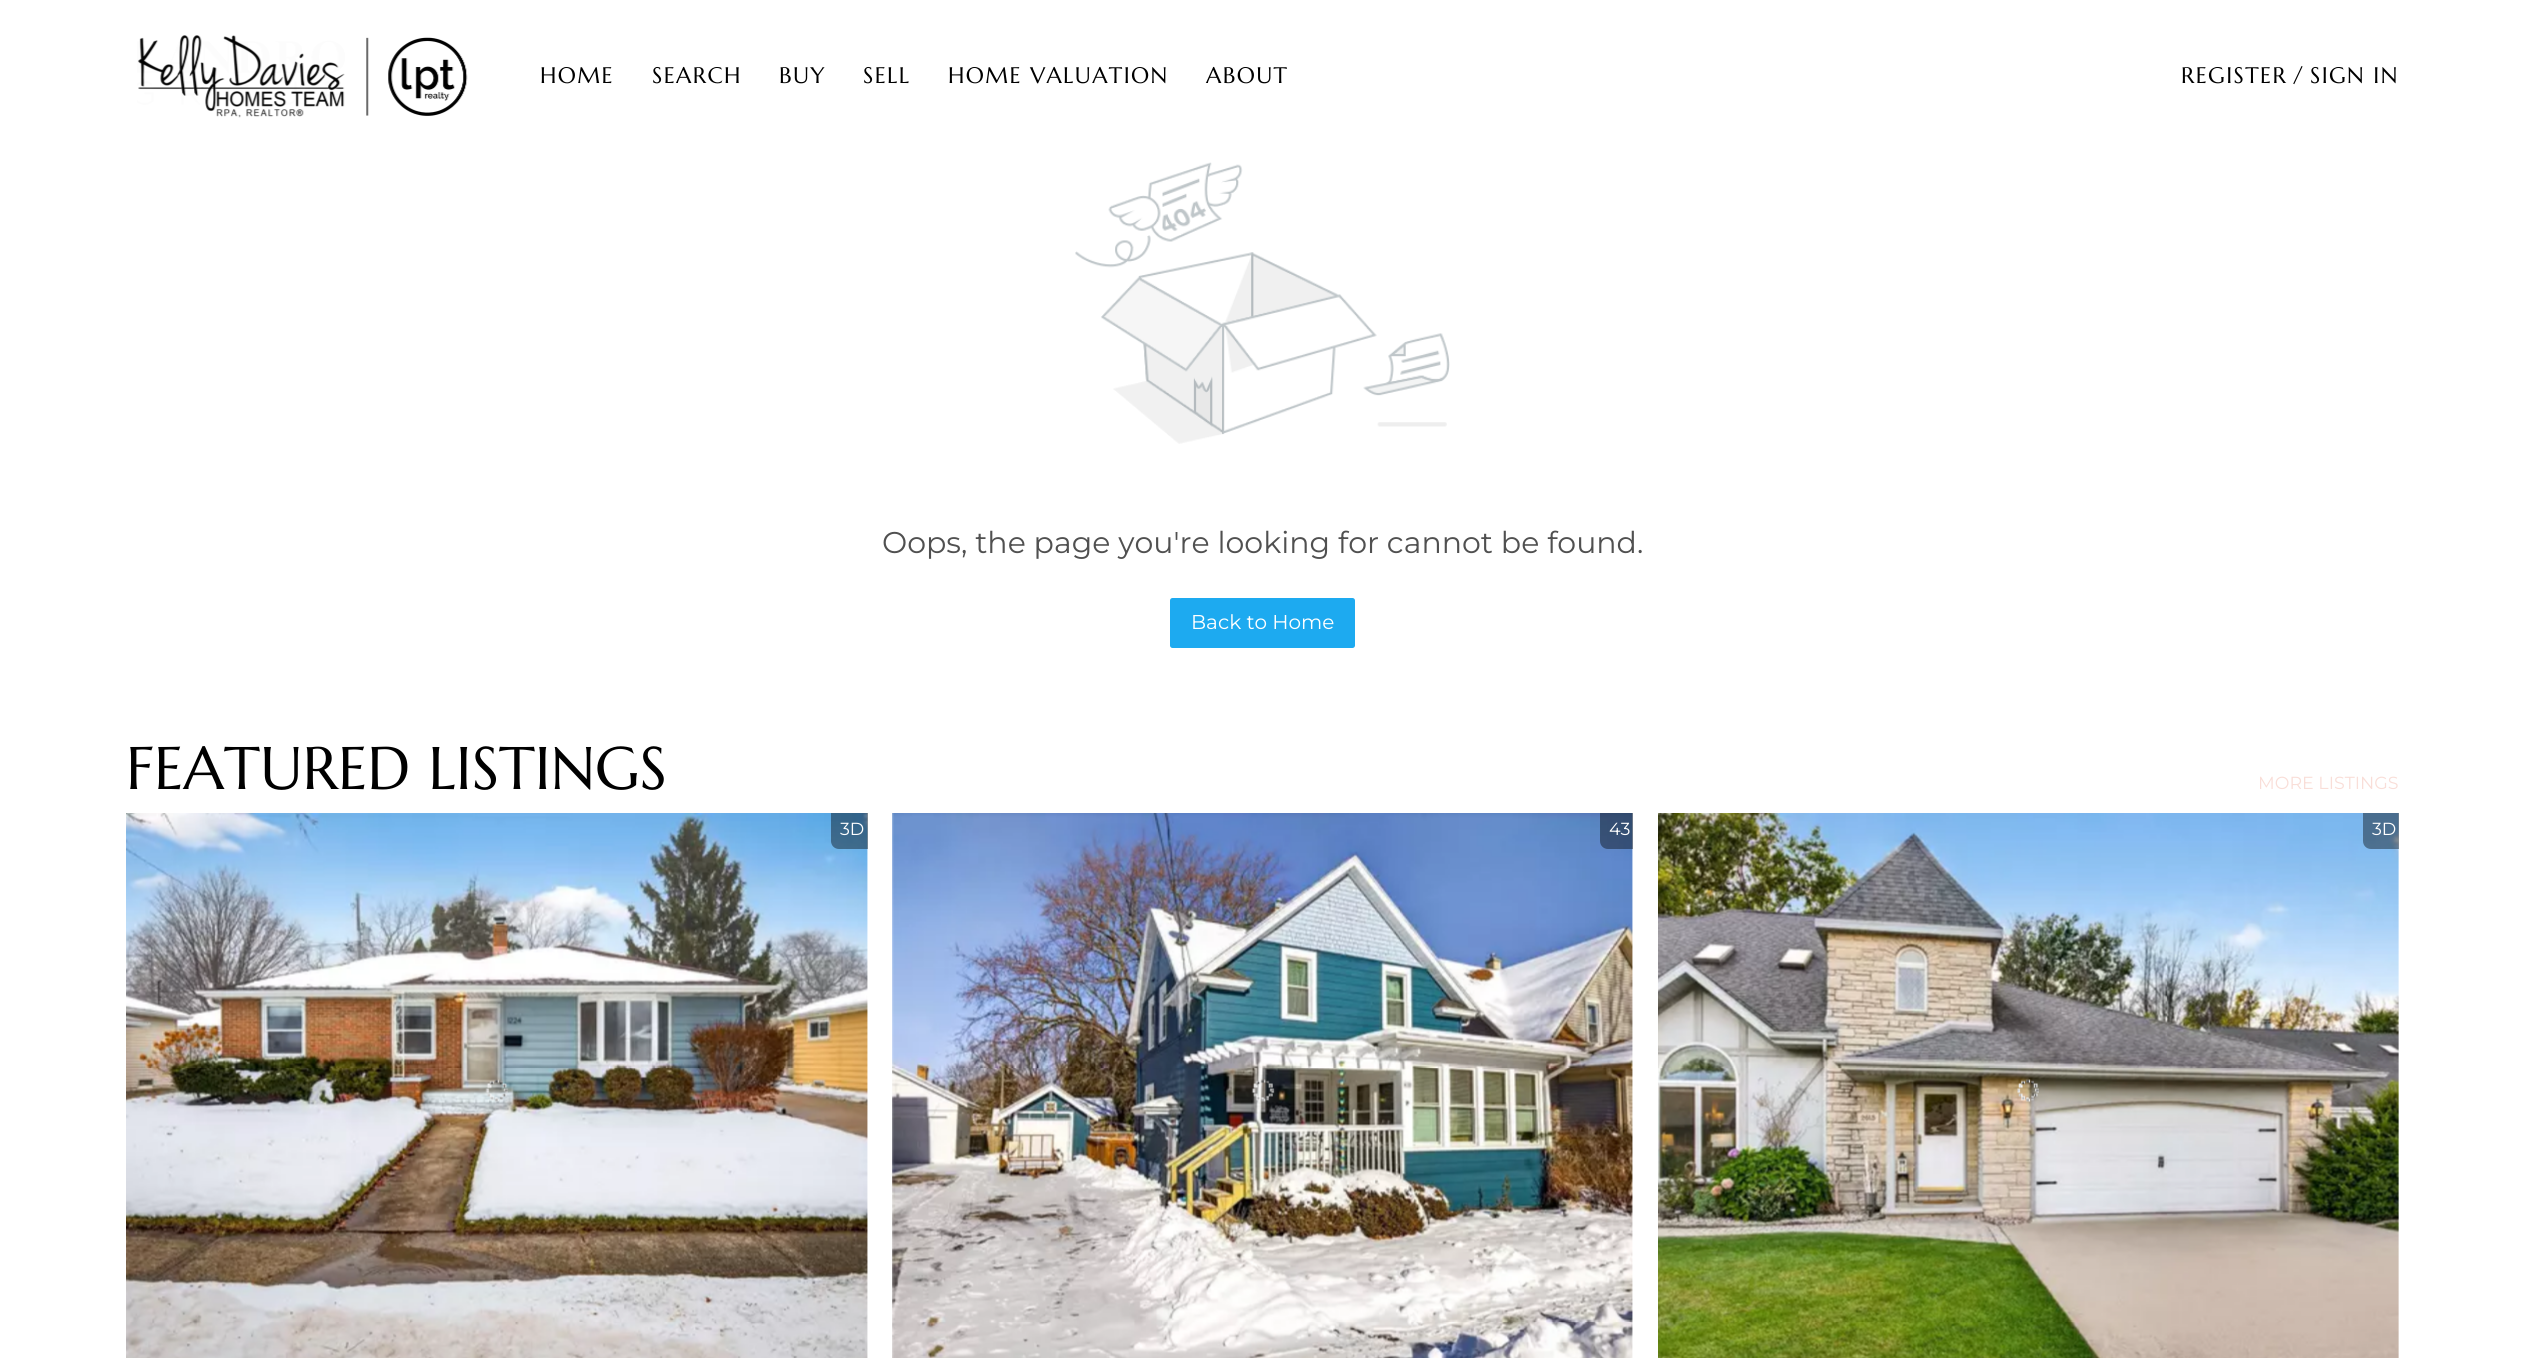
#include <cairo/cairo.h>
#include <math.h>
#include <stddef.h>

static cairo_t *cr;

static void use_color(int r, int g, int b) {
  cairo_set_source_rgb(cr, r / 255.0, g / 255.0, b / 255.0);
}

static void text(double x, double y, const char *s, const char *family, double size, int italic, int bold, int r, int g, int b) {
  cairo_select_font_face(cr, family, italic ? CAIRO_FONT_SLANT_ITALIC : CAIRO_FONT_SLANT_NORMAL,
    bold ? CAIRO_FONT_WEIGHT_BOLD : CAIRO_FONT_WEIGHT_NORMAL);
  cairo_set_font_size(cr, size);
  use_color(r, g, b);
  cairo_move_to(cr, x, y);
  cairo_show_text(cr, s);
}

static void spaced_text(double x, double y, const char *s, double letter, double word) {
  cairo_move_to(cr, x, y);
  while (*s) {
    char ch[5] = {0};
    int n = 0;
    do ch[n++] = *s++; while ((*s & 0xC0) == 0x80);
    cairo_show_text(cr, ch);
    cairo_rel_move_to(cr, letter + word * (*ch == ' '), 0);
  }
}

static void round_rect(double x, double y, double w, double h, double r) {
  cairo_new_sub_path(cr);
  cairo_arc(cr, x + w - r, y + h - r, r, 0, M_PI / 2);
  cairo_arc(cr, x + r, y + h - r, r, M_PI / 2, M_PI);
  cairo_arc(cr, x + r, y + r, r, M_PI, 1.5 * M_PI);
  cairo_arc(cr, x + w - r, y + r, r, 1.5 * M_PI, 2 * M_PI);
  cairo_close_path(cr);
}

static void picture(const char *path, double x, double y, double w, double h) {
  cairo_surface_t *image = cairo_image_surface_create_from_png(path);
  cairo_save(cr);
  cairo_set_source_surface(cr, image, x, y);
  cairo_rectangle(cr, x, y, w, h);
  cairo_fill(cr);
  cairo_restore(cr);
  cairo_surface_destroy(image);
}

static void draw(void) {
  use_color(255, 255, 255);
  cairo_paint(cr);
  picture("img_01.png", 137, 35, 331, 83);
  picture("img_02.png", 1075, 162, 375, 282);
  use_color(29, 170, 240);
  round_rect(1170, 598, 185, 50, 2.5);
  cairo_fill(cr);
  picture("img_03.png", 126, 813, 742, 545);
  picture("img_04.png", 485, 1079, 23, 23);
  cairo_set_source_rgba(cr, 0, 0, 0, 0.4);
  cairo_new_path(cr);
  cairo_move_to(cr, 831, 813);
  cairo_line_to(cr, 868, 813);
  cairo_line_to(cr, 868, 849);
  cairo_line_to(cr, 839, 849);
  cairo_curve_to(cr, 834.5, 849, 831, 845.5, 831, 841);
  cairo_close_path(cr);
  cairo_fill(cr);
  picture("img_05.png", 892, 813, 741, 545);
  picture("img_06.png", 1251, 1079, 24, 23);
  cairo_new_path(cr);
  cairo_move_to(cr, 1600, 813);
  cairo_line_to(cr, 1633, 813);
  cairo_line_to(cr, 1633, 849);
  cairo_line_to(cr, 1608, 849);
  cairo_curve_to(cr, 1603.5, 849, 1600, 845.5, 1600, 841);
  cairo_close_path(cr);
  cairo_fill(cr);
  picture("img_07.png", 1658, 813, 741, 545);
  picture("img_08.png", 2017, 1079, 22, 23);
  cairo_new_path(cr);
  cairo_move_to(cr, 2363, 813);
  cairo_line_to(cr, 2399, 813);
  cairo_line_to(cr, 2399, 849);
  cairo_line_to(cr, 2371, 849);
  cairo_curve_to(cr, 2366.5, 849, 2363, 845.5, 2363, 841);
  cairo_close_path(cr);
  cairo_fill(cr);
  cairo_select_font_face(cr, "Marcellus", CAIRO_FONT_SLANT_NORMAL, CAIRO_FONT_WEIGHT_NORMAL);
  cairo_set_font_size(cr, 22.5);
  use_color(0, 0, 0);
  spaced_text(540, 83, "HOME", 1.4, 0);
  spaced_text(652, 83, "SEARCH", 1.4, 0);
  spaced_text(779, 83, "BUY", 1.4, 0);
  spaced_text(863, 83, "SELL", 1.4, 0);
  spaced_text(948, 83, "HOME VALUATION", 1.4, 0);
  spaced_text(1206, 83, "ABOUT", 1.4, 0);
  spaced_text(2181, 83, "REGISTER", 1.4, 0);
  spaced_text(2293, 83, "/", 1.4, 0);
  spaced_text(2310, 83, "SIGN IN", 1.4, 0);
  text(882, 553, "Oops, the page you're looking for cannot be found.", "Montserrat", 30, 0, 0, 80, 80, 80);
  text(1191, 629, "Back to Home", "Montserrat", 20, 0, 0, 255, 255, 255);
  text(126, 789, "FEATURED LISTINGS", "Marcellus", 60, 0, 0, 0, 0, 0);
  text(2258, 789, "MORE LISTINGS", "Montserrat", 17.5, 0, 0, 249, 222, 216);
  text(840, 835, "3D", "Montserrat", 17.5, 0, 0, 255, 255, 255);
  text(1609, 835, "43", "Montserrat", 17.5, 0, 0, 255, 255, 255);
  text(2372, 835, "3D", "Montserrat", 17.5, 0, 0, 255, 255, 255);
}

int main(void) {
  cairo_surface_t *surface = cairo_image_surface_create(CAIRO_FORMAT_RGB24, 2525, 1358);
  cr = cairo_create(surface);
  cairo_font_options_t *options = cairo_font_options_create();
  cairo_font_options_set_hint_metrics(options, CAIRO_HINT_METRICS_OFF);
  cairo_font_options_set_hint_style(options, CAIRO_HINT_STYLE_NONE);
  cairo_set_font_options(cr, options);
  cairo_set_miter_limit(cr, 4);
  draw();
  cairo_surface_write_to_png(surface, "out.png");
  cairo_font_options_destroy(options);
  cairo_destroy(cr);
  cairo_surface_destroy(surface);
  return 0;
}
